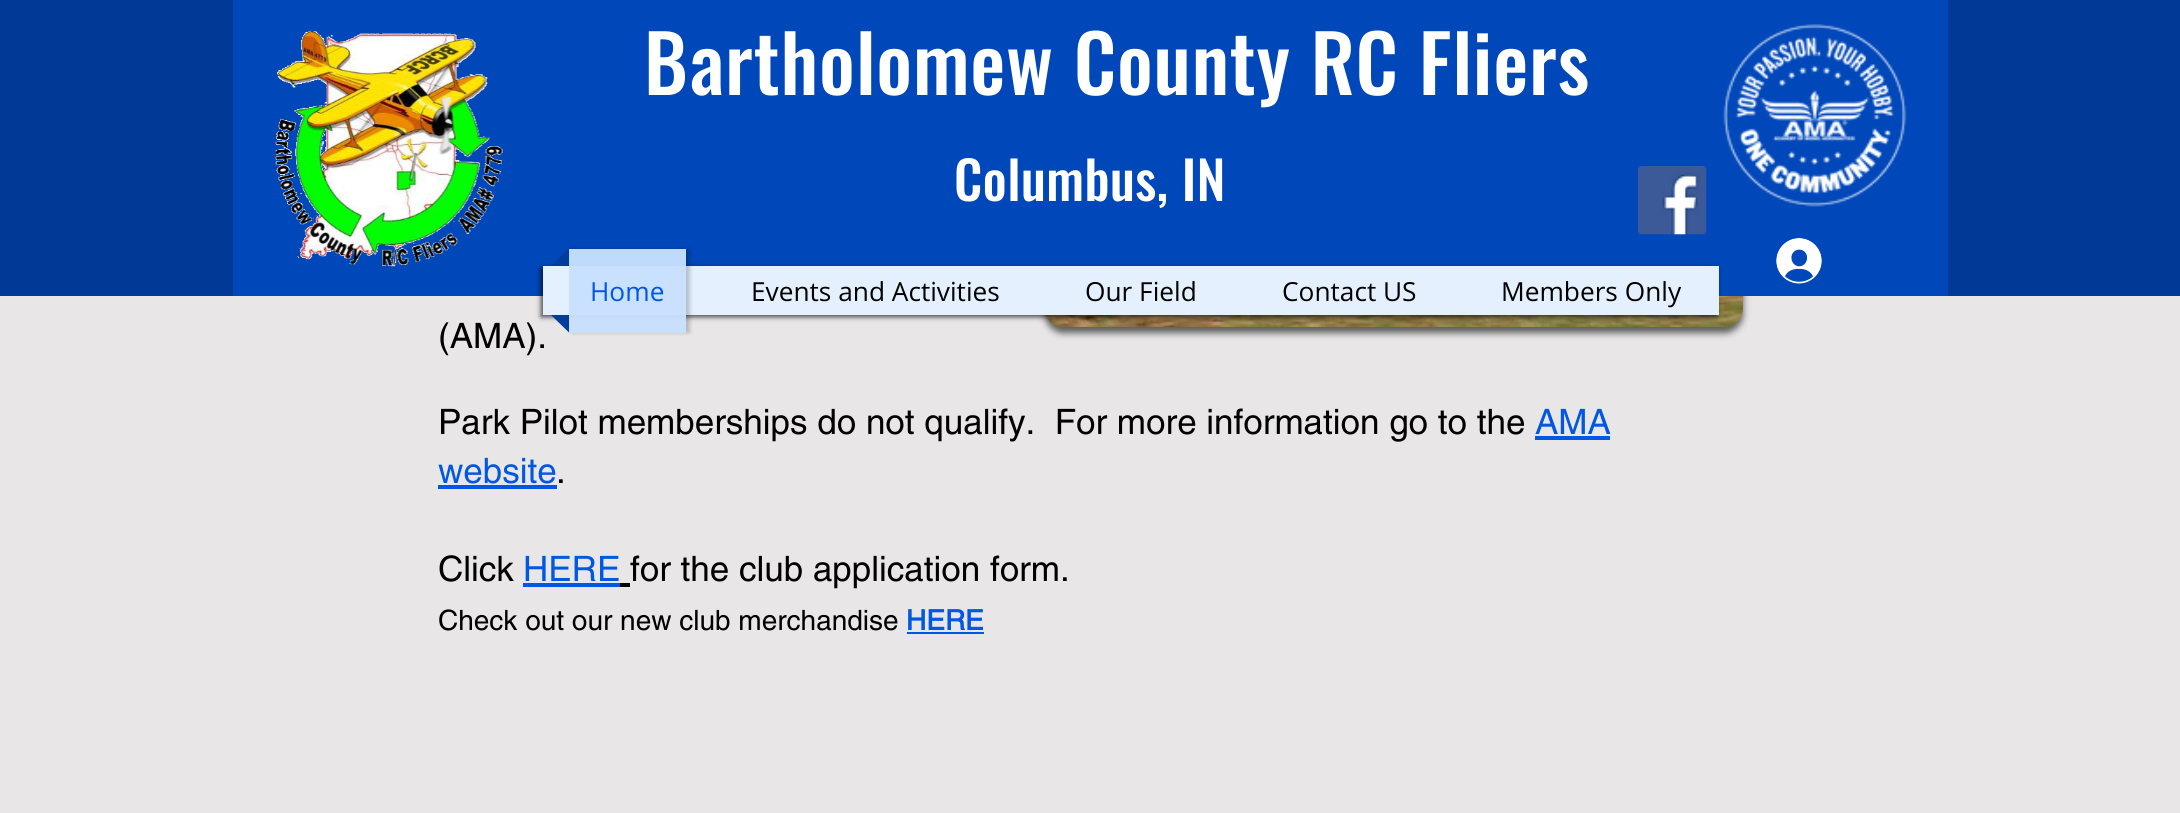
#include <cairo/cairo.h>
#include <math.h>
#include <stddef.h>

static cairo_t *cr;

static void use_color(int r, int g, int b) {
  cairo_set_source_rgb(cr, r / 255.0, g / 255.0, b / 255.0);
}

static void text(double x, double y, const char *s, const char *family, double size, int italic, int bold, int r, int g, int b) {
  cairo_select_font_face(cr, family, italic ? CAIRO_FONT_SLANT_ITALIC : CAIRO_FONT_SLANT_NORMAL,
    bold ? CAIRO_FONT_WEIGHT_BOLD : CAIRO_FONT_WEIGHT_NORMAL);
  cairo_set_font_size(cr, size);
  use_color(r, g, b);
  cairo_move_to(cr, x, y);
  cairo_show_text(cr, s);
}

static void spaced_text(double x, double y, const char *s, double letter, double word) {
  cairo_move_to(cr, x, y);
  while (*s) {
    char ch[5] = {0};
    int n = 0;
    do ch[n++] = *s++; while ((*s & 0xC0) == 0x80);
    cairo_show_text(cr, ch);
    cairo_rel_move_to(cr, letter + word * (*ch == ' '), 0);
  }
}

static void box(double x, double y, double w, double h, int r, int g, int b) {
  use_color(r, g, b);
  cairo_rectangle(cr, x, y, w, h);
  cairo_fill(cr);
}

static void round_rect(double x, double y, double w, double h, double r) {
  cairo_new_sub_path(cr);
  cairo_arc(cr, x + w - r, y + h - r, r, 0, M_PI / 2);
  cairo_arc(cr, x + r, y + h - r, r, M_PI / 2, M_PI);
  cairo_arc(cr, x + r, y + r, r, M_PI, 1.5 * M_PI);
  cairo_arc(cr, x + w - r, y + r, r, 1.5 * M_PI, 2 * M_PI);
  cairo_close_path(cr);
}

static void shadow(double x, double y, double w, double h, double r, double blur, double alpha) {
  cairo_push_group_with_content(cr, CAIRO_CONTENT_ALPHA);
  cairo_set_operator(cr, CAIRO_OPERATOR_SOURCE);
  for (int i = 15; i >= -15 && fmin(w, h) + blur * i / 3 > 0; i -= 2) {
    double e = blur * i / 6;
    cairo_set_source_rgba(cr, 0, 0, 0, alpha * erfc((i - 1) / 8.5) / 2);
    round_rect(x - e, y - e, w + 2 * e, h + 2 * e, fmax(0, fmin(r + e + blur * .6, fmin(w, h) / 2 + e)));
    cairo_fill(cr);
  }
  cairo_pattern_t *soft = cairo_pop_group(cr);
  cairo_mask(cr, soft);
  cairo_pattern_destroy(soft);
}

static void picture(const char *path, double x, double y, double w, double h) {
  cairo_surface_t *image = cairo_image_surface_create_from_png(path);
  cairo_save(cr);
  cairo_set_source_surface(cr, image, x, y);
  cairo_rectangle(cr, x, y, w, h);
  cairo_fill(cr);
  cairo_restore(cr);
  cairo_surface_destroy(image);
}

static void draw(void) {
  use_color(232, 230, 230);
  cairo_paint(cr);
  use_color(0, 0, 0);
  shadow(1045, -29, 698, 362, 18, 3.5, 0.6);
  box(0, 0, 2180, 296, 0, 58, 150);
  box(233, 0, 1715, 296, 0, 71, 185);
  picture("img_01.png", 275, 30, 228, 237);
  picture("img_02.png", 1723, 24, 184, 183);
  picture("img_03.png", 1638, 166, 69, 69);
  picture("img_04.png", 1776, 238, 46, 46);
  picture("img_05.png", 1045, 296, 698, 31);
  use_color(0, 0, 0);
  shadow(541, 268, 1176, 49, 0, 2.5, 0.7);
  box(543, 266, 1176, 49, 229, 240, 254);
  cairo_save(cr);
  cairo_set_fill_rule(cr, CAIRO_FILL_RULE_EVEN_ODD);
  cairo_new_path(cr);
  cairo_move_to(cr, 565, 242);
  cairo_line_to(cr, 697, 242);
  cairo_line_to(cr, 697, 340);
  cairo_line_to(cr, 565, 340);
  cairo_close_path(cr);
  cairo_move_to(cr, 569, 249);
  cairo_line_to(cr, 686, 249);
  cairo_line_to(cr, 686, 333);
  cairo_line_to(cr, 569, 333);
  cairo_close_path(cr);
  cairo_clip(cr);
  use_color(0, 0, 0);
  shadow(572, 249, 118, 84, 0, 2, 0.2);
  cairo_restore(cr);
  use_color(0, 61, 158);
  cairo_new_path(cr);
  cairo_move_to(cr, 569, 266);
  cairo_line_to(cr, 551, 266);
  cairo_line_to(cr, 569, 248.5);
  cairo_close_path(cr);
  cairo_fill(cr);
  cairo_set_source_rgba(cr, 0.784, 0.878, 0.996, 0.96);
  cairo_rectangle(cr, 569, 249, 117, 84);
  cairo_fill(cr);
  use_color(0, 61, 158);
  cairo_new_path(cr);
  cairo_move_to(cr, 551, 315);
  cairo_line_to(cr, 569, 315);
  cairo_line_to(cr, 569, 332.5);
  cairo_close_path(cr);
  cairo_fill(cr);
  box(1535, 436, 75, 4, 0, 87, 225);
  box(438, 485, 119, 4, 0, 87, 225);
  box(523, 583, 97, 4, 0, 87, 225);
  box(620, 583, 10, 4, 0, 0, 0);
  box(907, 632, 77, 2, 0, 87, 225);
  cairo_select_font_face(cr, "Oswald Medium", CAIRO_FONT_SLANT_NORMAL, CAIRO_FONT_WEIGHT_NORMAL);
  cairo_set_font_size(cr, 78.75);
  use_color(255, 255, 255);
  spaced_text(644, 95, "Bartholomew County RC Fliers", 0.8, 0);
  cairo_set_font_size(cr, 52.5);
  spaced_text(954, 201, "Columbus, IN", 0.5, 0);
  text(590, 301, "Home", "Open Sans", 26.25, 0, 0, 0, 87, 225);
  text(751, 301, "Events and Activities", "Open Sans", 26.25, 0, 0, 0, 0, 0);
  text(1085, 301, "Our Field", "Open Sans", 26.25, 0, 0, 0, 0, 0);
  text(1282, 301, "Contact US", "Open Sans", 26.25, 0, 0, 0, 0, 0);
  text(1501, 301, "Members Only", "Open Sans", 26.25, 0, 0, 0, 0, 0);
  text(438, 348, "(AMA).", "helvetica", 35, 0, 0, 0, 0, 0);
  text(438, 434, "Park Pilot memberships do not qualify.  For more information go to the", "helvetica", 35, 0, 0, 0, 0, 0);
  text(1535, 434, "AMA", "helvetica", 35, 0, 0, 0, 87, 225);
  text(438, 483, "website", "helvetica", 35, 0, 0, 0, 87, 225);
  text(556, 483, ".", "helvetica", 35, 0, 0, 0, 0, 0);
  text(438, 581, "Click", "helvetica", 35, 0, 0, 0, 0, 0);
  text(523, 581, "HERE", "helvetica", 35, 0, 0, 0, 87, 225);
  text(630, 581, "for the club application form.", "helvetica", 35, 0, 0, 0, 0, 0);
  text(438, 630, "Check out our new club merchandise", "helvetica", 28, 0, 0, 0, 0, 0);
  text(906, 630, "HERE", "helvetica", 28, 0, 1, 0, 87, 225);
}

int main(void) {
  cairo_surface_t *surface = cairo_image_surface_create(CAIRO_FORMAT_RGB24, 2180, 813);
  cr = cairo_create(surface);
  cairo_font_options_t *options = cairo_font_options_create();
  cairo_font_options_set_hint_metrics(options, CAIRO_HINT_METRICS_OFF);
  cairo_font_options_set_hint_style(options, CAIRO_HINT_STYLE_NONE);
  cairo_set_font_options(cr, options);
  cairo_set_miter_limit(cr, 4);
  draw();
  cairo_surface_write_to_png(surface, "out.png");
  cairo_font_options_destroy(options);
  cairo_destroy(cr);
  cairo_surface_destroy(surface);
  return 0;
}
